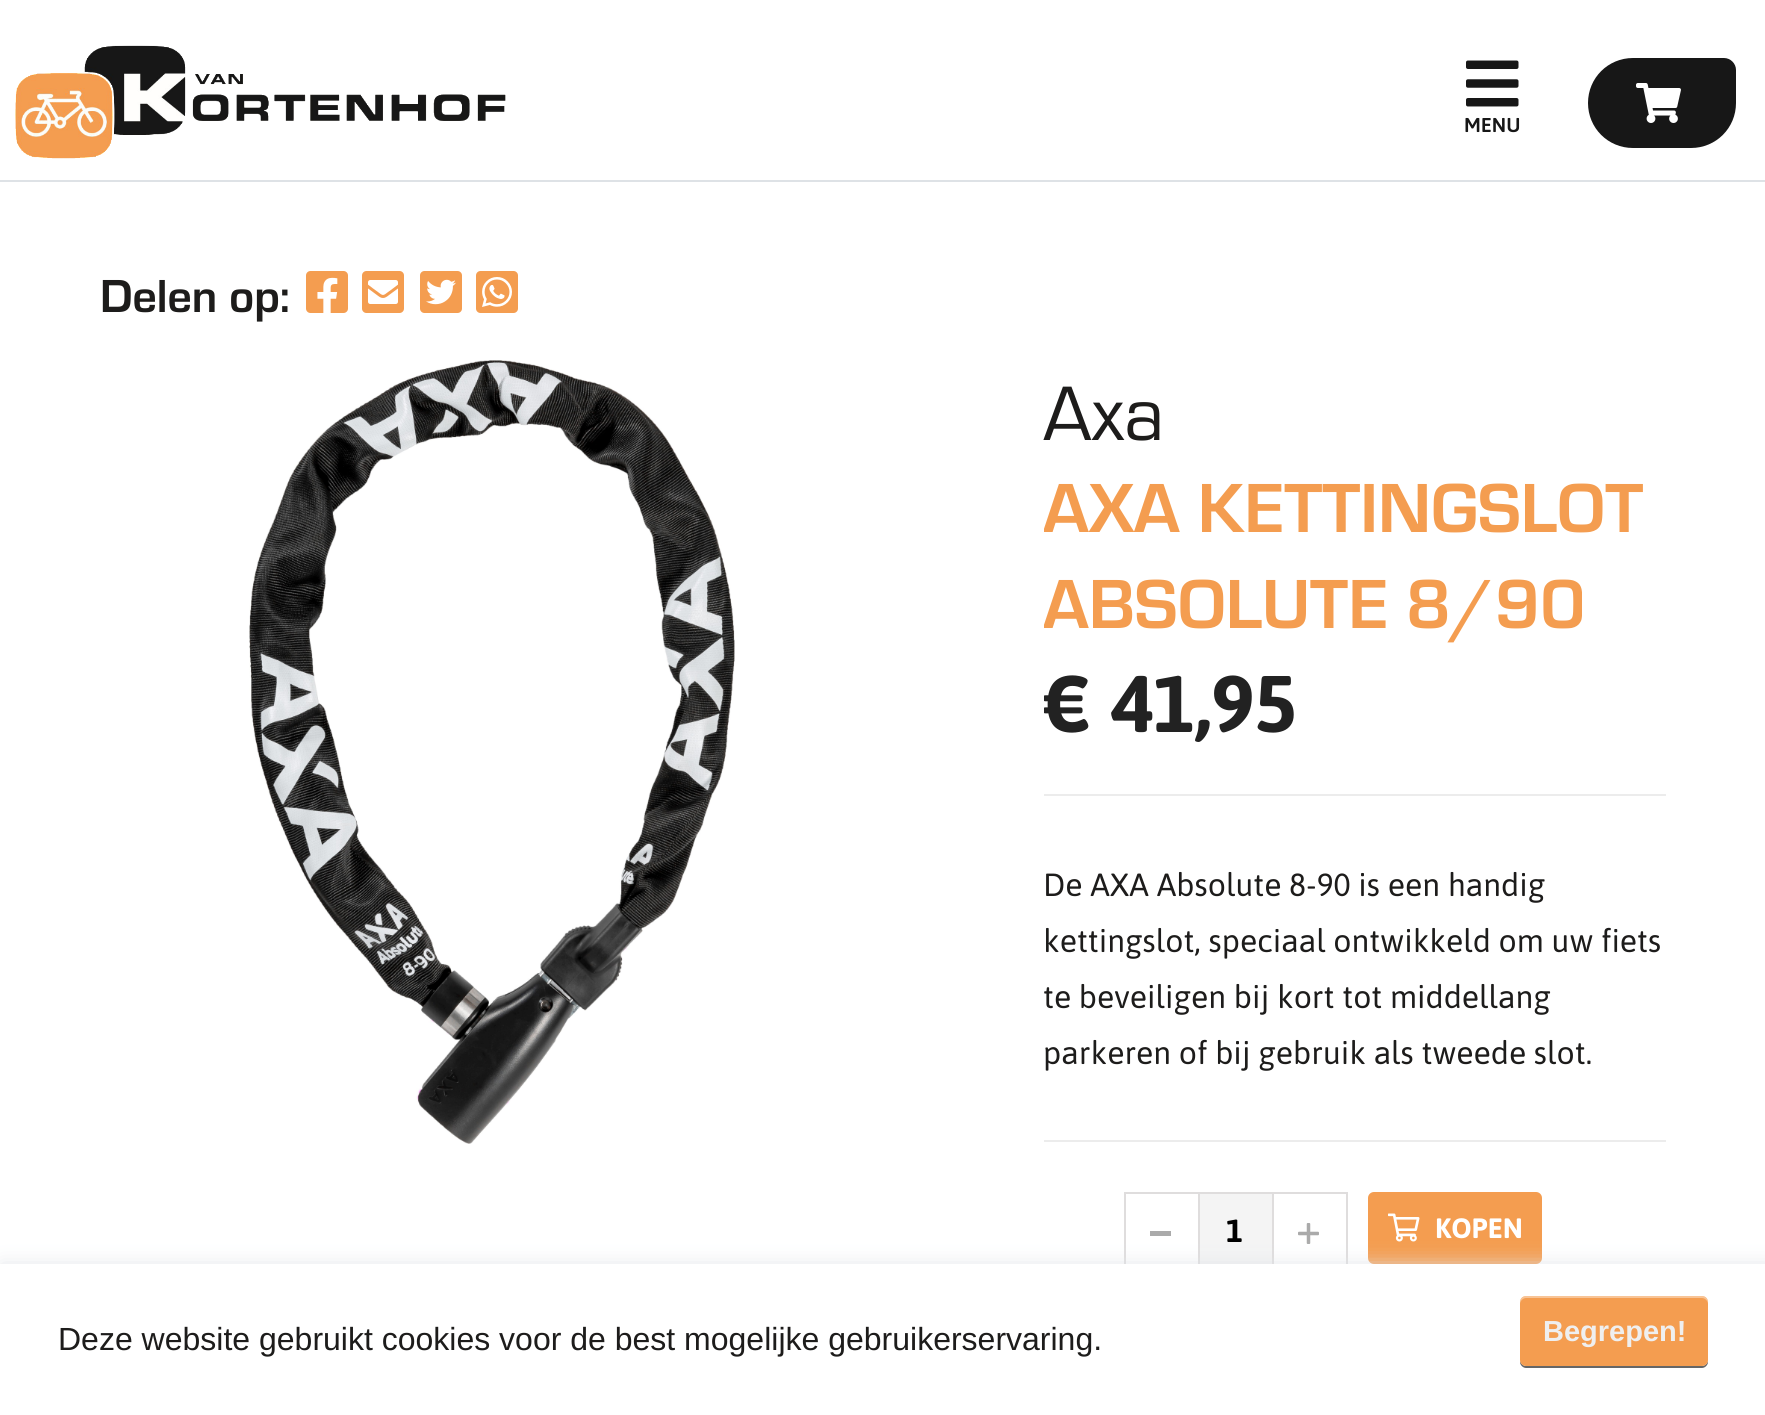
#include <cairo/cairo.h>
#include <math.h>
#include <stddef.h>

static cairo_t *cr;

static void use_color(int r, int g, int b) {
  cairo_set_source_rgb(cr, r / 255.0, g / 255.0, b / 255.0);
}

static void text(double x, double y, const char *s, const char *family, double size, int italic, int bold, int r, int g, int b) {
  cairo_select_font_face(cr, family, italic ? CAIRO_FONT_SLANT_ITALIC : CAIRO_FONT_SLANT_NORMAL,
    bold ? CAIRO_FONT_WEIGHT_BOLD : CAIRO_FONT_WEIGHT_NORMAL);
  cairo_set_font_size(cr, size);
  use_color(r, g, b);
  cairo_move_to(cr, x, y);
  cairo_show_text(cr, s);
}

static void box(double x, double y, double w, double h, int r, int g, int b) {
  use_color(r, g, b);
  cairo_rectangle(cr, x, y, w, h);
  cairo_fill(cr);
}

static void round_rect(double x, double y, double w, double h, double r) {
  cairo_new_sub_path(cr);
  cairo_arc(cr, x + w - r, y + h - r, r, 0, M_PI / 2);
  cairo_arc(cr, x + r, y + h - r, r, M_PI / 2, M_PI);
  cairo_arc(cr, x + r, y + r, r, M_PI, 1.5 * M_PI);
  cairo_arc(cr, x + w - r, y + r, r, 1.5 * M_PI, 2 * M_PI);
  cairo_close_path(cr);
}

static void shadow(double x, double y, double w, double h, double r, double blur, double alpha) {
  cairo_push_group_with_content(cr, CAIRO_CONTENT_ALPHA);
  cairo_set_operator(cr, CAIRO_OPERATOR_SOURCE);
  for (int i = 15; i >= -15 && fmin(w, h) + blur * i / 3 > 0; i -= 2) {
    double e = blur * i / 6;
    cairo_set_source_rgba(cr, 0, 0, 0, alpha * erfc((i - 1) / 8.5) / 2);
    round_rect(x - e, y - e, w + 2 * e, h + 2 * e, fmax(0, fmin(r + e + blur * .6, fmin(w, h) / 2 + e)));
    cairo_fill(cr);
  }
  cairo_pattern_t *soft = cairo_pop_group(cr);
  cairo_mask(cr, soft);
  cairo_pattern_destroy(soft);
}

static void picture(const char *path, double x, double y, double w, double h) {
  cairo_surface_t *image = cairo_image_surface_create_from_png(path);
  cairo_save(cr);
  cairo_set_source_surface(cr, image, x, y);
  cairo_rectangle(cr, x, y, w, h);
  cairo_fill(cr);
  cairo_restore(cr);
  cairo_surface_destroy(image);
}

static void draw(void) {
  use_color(255, 255, 255);
  cairo_paint(cr);
  box(0, 180, 1765, 2, 222, 226, 230);
  picture("img_01.png", 15, 45, 491, 114);
  picture("img_02.png", 1466, 60, 53, 47);
  use_color(23, 23, 23);
  cairo_new_path(cr);
  cairo_move_to(cr, 1633, 58);
  cairo_line_to(cr, 1724, 58);
  cairo_curve_to(cr, 1730.5, 58, 1736, 63.5, 1736, 70);
  cairo_line_to(cr, 1736, 103);
  cairo_curve_to(cr, 1736, 128, 1716, 148, 1691, 148);
  cairo_line_to(cr, 1633, 148);
  cairo_curve_to(cr, 1608, 148, 1588, 128, 1588, 103);
  cairo_curve_to(cr, 1588, 78, 1608, 58, 1633, 58);
  cairo_close_path(cr);
  cairo_fill(cr);
  picture("img_03.png", 1636, 83, 45, 40);
  picture("img_04.png", 306, 271, 42, 42);
  picture("img_05.png", 362, 271, 42, 42);
  picture("img_06.png", 420, 271, 42, 42);
  picture("img_07.png", 476, 271, 42, 42);
  picture("img_08.png", 249, 360, 486, 784);
  box(1044, 794, 622, 2, 236, 236, 236);
  box(1044, 1140, 622, 2, 236, 236, 236);
  cairo_rectangle(cr, 1125, 1193, 74, 74);
  use_color(223, 221, 221);
  cairo_stroke(cr);
  box(1150, 1231, 21, 5, 170, 170, 170);
  box(1200, 1194, 72, 70, 244, 244, 244);
  box(1200, 1192, 72, 2, 223, 221, 221);
  cairo_rectangle(cr, 1273, 1193, 74, 74);
  cairo_stroke(cr);
  picture("img_09.png", 1298, 1223, 21, 21);
  use_color(244, 157, 80);
  round_rect(1368, 1192, 174, 72, 6);
  cairo_fill(cr);
  picture("img_10.png", 1388, 1213, 32, 29);
  use_color(222, 226, 230);
  shadow(2, 1266, 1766, 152, 0, 10, 1);
  box(0, 1264, 1765, 151, 255, 255, 255);
  use_color(102, 102, 102);
  cairo_new_path(cr);
  cairo_move_to(cr, 1520, 1360);
  cairo_line_to(cr, 1520, 1362);
  cairo_curve_to(cr, 1520, 1365, 1523, 1368, 1526, 1368);
  cairo_line_to(cr, 1702, 1368);
  cairo_curve_to(cr, 1705, 1368, 1708, 1365, 1708, 1362);
  cairo_line_to(cr, 1708, 1360);
  cairo_curve_to(cr, 1708, 1363, 1705, 1366, 1702, 1366);
  cairo_line_to(cr, 1526, 1366);
  cairo_curve_to(cr, 1523, 1366, 1520, 1363, 1520, 1360);
  cairo_close_path(cr);
  cairo_fill(cr);
  use_color(244, 157, 80);
  round_rect(1520, 1296, 188, 70, 6);
  cairo_fill(cr);
  cairo_set_source_rgba(cr, 1, 1, 1, 0.4);
  cairo_new_path(cr);
  cairo_move_to(cr, 1526, 1298);
  cairo_line_to(cr, 1702, 1298);
  cairo_curve_to(cr, 1705, 1298, 1708, 1301, 1708, 1304);
  cairo_line_to(cr, 1708, 1302);
  cairo_curve_to(cr, 1708, 1299, 1705, 1296, 1702, 1296);
  cairo_line_to(cr, 1526, 1296);
  cairo_curve_to(cr, 1523, 1296, 1520, 1299, 1520, 1302);
  cairo_line_to(cr, 1520, 1304);
  cairo_curve_to(cr, 1520, 1301, 1523, 1298, 1526, 1298);
  cairo_close_path(cr);
  cairo_fill(cr);
  text(1464, 132, "MENU", "Asap SemiBold", 20, 0, 0, 23, 23, 23);
  text(100, 312, "Delen op:", "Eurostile", 48, 0, 1, 29, 28, 27);
  text(1043, 440, "Axa", "Eurostile", 80, 0, 0, 29, 28, 27);
  cairo_save(cr);
  cairo_rectangle(cr, 1044, 360, 622, 968);
  cairo_clip(cr);
  text(1043, 532, "AXA KETTINGSLOT", "Eurostile", 72, 0, 1, 244, 157, 80);
  text(1043, 628, "ABSOLUTE 8/90", "Eurostile", 72, 0, 1, 244, 157, 80);
  text(1043, 732, "€ 41,95", "Asap", 80, 0, 1, 34, 34, 34);
  cairo_restore(cr);
  text(1043, 896, "De AXA Absolute 8-90 is een handig", "Asap", 32, 0, 0, 29, 28, 27);
  text(1043, 952, "kettingslot, speciaal ontwikkeld om uw fiets", "Asap", 32, 0, 0, 29, 28, 27);
  text(1043, 1008, "te beveiligen bij kort tot middellang", "Asap", 32, 0, 0, 29, 28, 27);
  text(1043, 1064, "parkeren of bij gebruik als tweede slot.", "Asap", 32, 0, 0, 29, 28, 27);
  text(1226, 1242, "1", "Asap", 32, 0, 1, 0, 0, 0);
  text(1435, 1238, "KOPEN", "Asap", 28, 0, 1, 255, 255, 255);
  text(58, 1350, "Deze website gebruikt cookies voor de best mogelijke gebruikerservaring.", "Liberation Sans", 32, 0, 0, 29, 28, 27);
  text(1543, 1341, "Begrepen!", "Liberation Sans", 29, 0, 1, 239, 239, 239);
}

int main(void) {
  cairo_surface_t *surface = cairo_image_surface_create(CAIRO_FORMAT_RGB24, 1765, 1415);
  cr = cairo_create(surface);
  cairo_font_options_t *options = cairo_font_options_create();
  cairo_font_options_set_hint_metrics(options, CAIRO_HINT_METRICS_OFF);
  cairo_font_options_set_hint_style(options, CAIRO_HINT_STYLE_NONE);
  cairo_set_font_options(cr, options);
  cairo_set_miter_limit(cr, 4);
  draw();
  cairo_surface_write_to_png(surface, "out.png");
  cairo_font_options_destroy(options);
  cairo_destroy(cr);
  cairo_surface_destroy(surface);
  return 0;
}
